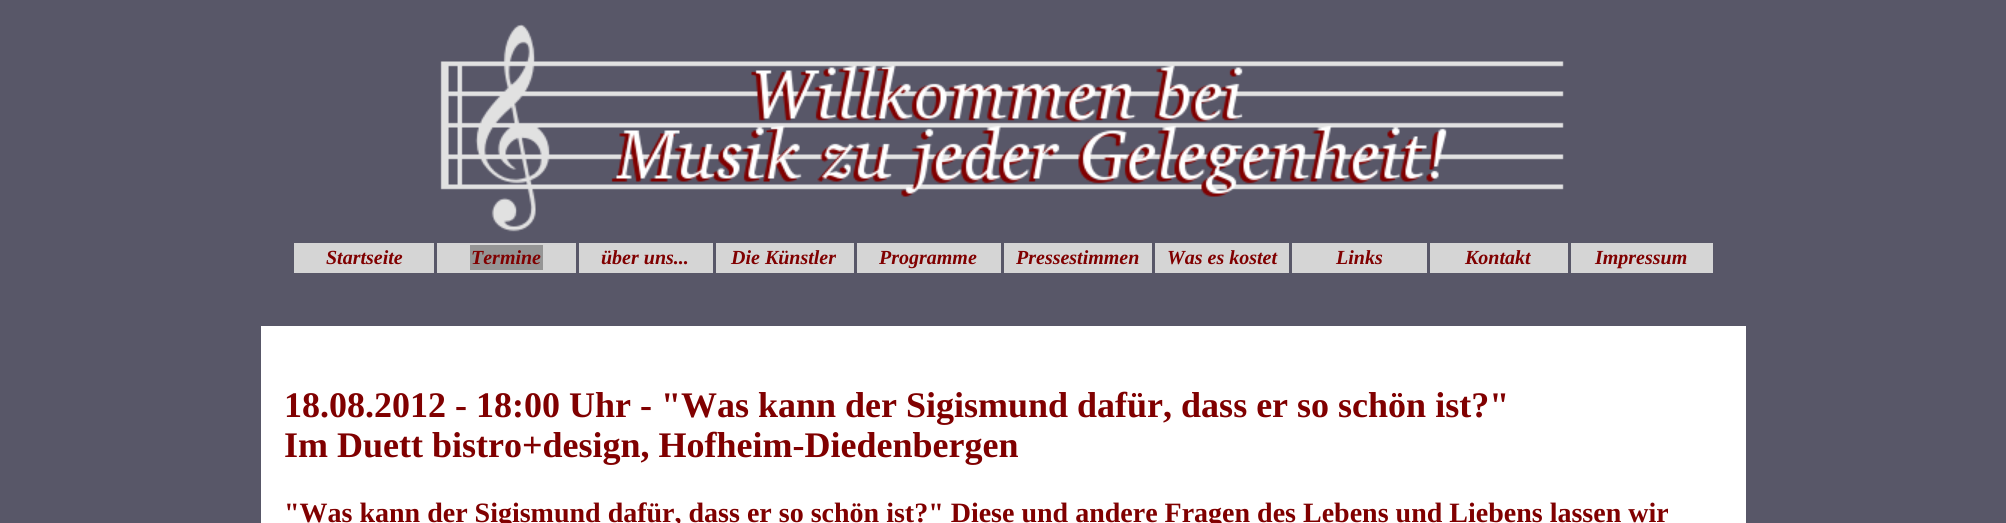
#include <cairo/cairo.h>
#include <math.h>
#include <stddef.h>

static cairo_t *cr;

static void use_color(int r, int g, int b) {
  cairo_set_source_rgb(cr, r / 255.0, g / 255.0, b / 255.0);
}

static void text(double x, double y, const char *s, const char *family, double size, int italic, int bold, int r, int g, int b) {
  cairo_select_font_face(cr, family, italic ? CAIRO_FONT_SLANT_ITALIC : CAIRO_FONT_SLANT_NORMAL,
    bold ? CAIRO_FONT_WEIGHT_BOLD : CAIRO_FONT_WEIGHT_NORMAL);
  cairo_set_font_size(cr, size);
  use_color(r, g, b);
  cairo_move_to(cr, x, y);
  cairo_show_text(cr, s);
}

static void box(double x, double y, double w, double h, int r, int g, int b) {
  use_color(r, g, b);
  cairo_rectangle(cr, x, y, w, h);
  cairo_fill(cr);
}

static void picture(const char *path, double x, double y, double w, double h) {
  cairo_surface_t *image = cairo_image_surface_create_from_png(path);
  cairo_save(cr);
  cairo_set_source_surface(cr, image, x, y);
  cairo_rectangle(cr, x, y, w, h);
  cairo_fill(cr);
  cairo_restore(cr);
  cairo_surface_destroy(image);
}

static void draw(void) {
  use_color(88, 87, 104);
  cairo_paint(cr);
  picture("img_01.png", 440, 24, 1124, 208);
  box(294, 243, 140, 30, 213, 213, 213);
  box(437, 243, 139, 30, 213, 213, 213);
  box(470, 245, 73, 25, 149, 149, 149);
  box(579, 243, 134, 30, 213, 213, 213);
  box(716, 243, 138, 30, 213, 213, 213);
  box(857, 243, 144, 30, 213, 213, 213);
  box(1004, 243, 148, 30, 213, 213, 213);
  box(1155, 243, 134, 30, 213, 213, 213);
  box(1292, 243, 135, 30, 213, 213, 213);
  box(1430, 243, 138, 30, 213, 213, 213);
  box(1571, 243, 142, 30, 213, 213, 213);
  box(261, 326, 1485, 197, 255, 255, 255);
  text(326, 264, "Startseite", "Liberation Serif", 20, 1, 1, 128, 0, 0);
  text(471, 264, "Termine", "Liberation Serif", 20, 1, 1, 128, 0, 0);
  text(601, 264, "über uns...", "Liberation Serif", 20, 1, 1, 128, 0, 0);
  text(731, 264, "Die Künstler", "Liberation Serif", 20, 1, 1, 128, 0, 0);
  text(879, 264, "Programme", "Liberation Serif", 20, 1, 1, 128, 0, 0);
  text(1016, 264, "Pressestimmen", "Liberation Serif", 20, 1, 1, 128, 0, 0);
  text(1167, 264, "Was es kostet", "Liberation Serif", 20, 1, 1, 128, 0, 0);
  text(1336, 264, "Links", "Liberation Serif", 20, 1, 1, 128, 0, 0);
  text(1465, 264, "Kontakt", "Liberation Serif", 20, 1, 1, 128, 0, 0);
  text(1595, 264, "Impressum", "Liberation Serif", 20, 1, 1, 128, 0, 0);
  text(284, 417, "18.08.2012 - 18:00 Uhr - \"Was kann der Sigismund dafür, dass er so schön ist?\"", "Liberation Serif", 36, 0, 1, 128, 0, 0);
  text(284, 457, "Im Duett bistro+design, Hofheim-Diedenbergen", "Liberation Serif", 36, 0, 1, 128, 0, 0);
  text(284, 522, "\"Was kann der Sigismund dafür, dass er so schön ist?\" Diese und andere Fragen des Lebens und Liebens lassen wir", "Liberation Serif", 28, 0, 1, 128, 0, 0);
}

int main(void) {
  cairo_surface_t *surface = cairo_image_surface_create(CAIRO_FORMAT_RGB24, 2006, 523);
  cr = cairo_create(surface);
  cairo_font_options_t *options = cairo_font_options_create();
  cairo_font_options_set_hint_metrics(options, CAIRO_HINT_METRICS_OFF);
  cairo_font_options_set_hint_style(options, CAIRO_HINT_STYLE_NONE);
  cairo_set_font_options(cr, options);
  cairo_set_miter_limit(cr, 4);
  draw();
  cairo_surface_write_to_png(surface, "out.png");
  cairo_font_options_destroy(options);
  cairo_destroy(cr);
  cairo_surface_destroy(surface);
  return 0;
}
